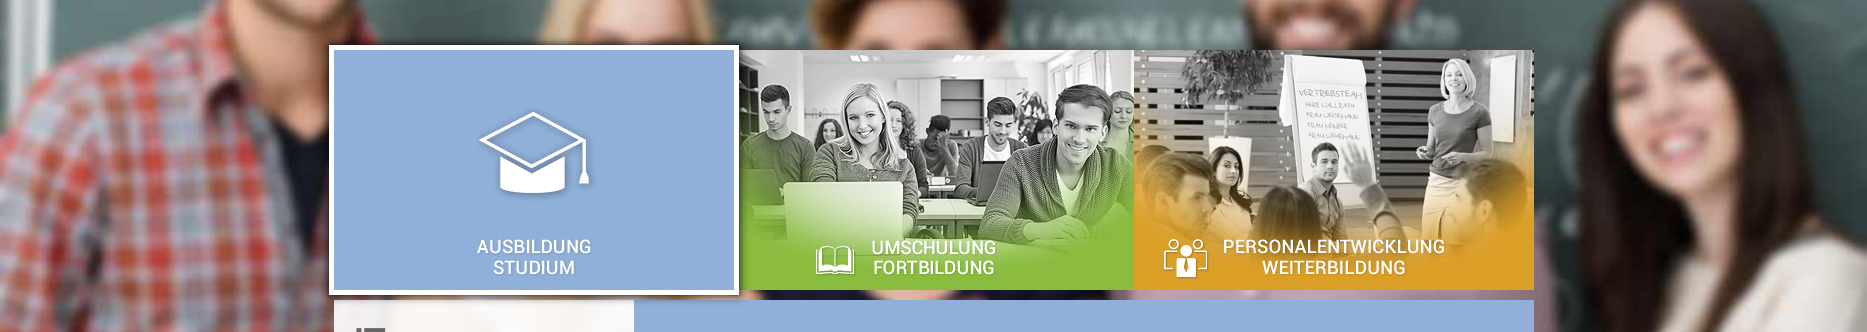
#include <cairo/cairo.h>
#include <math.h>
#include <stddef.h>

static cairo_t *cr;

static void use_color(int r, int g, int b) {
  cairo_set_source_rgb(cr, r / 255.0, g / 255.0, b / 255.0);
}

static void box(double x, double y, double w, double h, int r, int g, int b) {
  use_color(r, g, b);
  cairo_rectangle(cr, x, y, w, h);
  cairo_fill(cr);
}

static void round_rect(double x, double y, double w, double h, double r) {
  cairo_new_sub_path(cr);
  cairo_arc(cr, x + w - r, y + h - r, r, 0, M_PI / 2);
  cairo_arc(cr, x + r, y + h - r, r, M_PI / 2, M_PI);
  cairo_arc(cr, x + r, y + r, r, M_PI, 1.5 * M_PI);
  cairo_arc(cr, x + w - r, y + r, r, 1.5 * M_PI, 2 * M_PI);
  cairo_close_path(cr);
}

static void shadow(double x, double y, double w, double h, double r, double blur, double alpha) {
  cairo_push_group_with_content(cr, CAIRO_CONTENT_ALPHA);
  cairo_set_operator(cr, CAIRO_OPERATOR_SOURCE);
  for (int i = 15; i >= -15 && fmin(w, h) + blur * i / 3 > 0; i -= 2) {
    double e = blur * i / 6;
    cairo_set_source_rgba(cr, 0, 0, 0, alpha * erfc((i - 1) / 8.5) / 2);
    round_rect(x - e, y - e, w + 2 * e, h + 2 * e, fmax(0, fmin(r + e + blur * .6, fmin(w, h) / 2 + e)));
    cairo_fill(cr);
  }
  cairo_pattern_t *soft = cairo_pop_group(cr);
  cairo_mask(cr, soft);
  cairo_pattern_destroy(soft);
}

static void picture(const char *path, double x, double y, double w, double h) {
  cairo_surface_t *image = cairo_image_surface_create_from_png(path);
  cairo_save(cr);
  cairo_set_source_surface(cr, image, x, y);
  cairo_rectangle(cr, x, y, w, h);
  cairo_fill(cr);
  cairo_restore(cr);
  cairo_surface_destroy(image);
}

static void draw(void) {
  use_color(255, 255, 255);
  cairo_paint(cr);
  picture("img_01.png", 0, 0, 1867, 332);
  box(334, 50, 400, 240, 144, 176, 217);
  picture("img_02.png", 477, 108, 119, 168);
  picture("img_03.png", 739, 50, 395, 221);
  picture("img_04.png", 739, 50, 395, 240);
  cairo_set_source_rgba(cr, 1, 1, 1, 0.9);
  cairo_rectangle(cr, 334, 300, 300, 32);
  cairo_fill(cr);
  box(634, 300, 900, 32, 144, 176, 217);
  cairo_save(cr);
  cairo_set_fill_rule(cr, CAIRO_FILL_RULE_EVEN_ODD);
  cairo_new_path(cr);
  cairo_move_to(cr, 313, 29);
  cairo_line_to(cr, 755, 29);
  cairo_line_to(cr, 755, 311);
  cairo_line_to(cr, 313, 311);
  cairo_close_path(cr);
  cairo_move_to(cr, 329, 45);
  cairo_line_to(cr, 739, 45);
  cairo_line_to(cr, 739, 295);
  cairo_line_to(cr, 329, 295);
  cairo_close_path(cr);
  cairo_clip(cr);
  use_color(0, 0, 0);
  shadow(329, 45, 410, 250, 0, 5, 1);
  cairo_restore(cr);
  cairo_rectangle(cr, 331.5, 47.5, 405, 245);
  use_color(255, 255, 255);
  cairo_set_line_width(cr, 5);
  cairo_stroke(cr);
  picture("img_05.png", 816, 240, 181, 37);
  picture("img_06.png", 1134, 50, 400, 220);
  picture("img_07.png", 1134, 50, 400, 240);
  picture("img_08.png", 1164, 239, 282, 40);
  picture("img_09.png", 356, 328, 30, 4);
}

int main(void) {
  cairo_surface_t *surface = cairo_image_surface_create(CAIRO_FORMAT_RGB24, 1867, 332);
  cr = cairo_create(surface);
  cairo_font_options_t *options = cairo_font_options_create();
  cairo_font_options_set_hint_metrics(options, CAIRO_HINT_METRICS_OFF);
  cairo_font_options_set_hint_style(options, CAIRO_HINT_STYLE_NONE);
  cairo_set_font_options(cr, options);
  cairo_set_miter_limit(cr, 4);
  draw();
  cairo_surface_write_to_png(surface, "out.png");
  cairo_font_options_destroy(options);
  cairo_destroy(cr);
  cairo_surface_destroy(surface);
  return 0;
}
